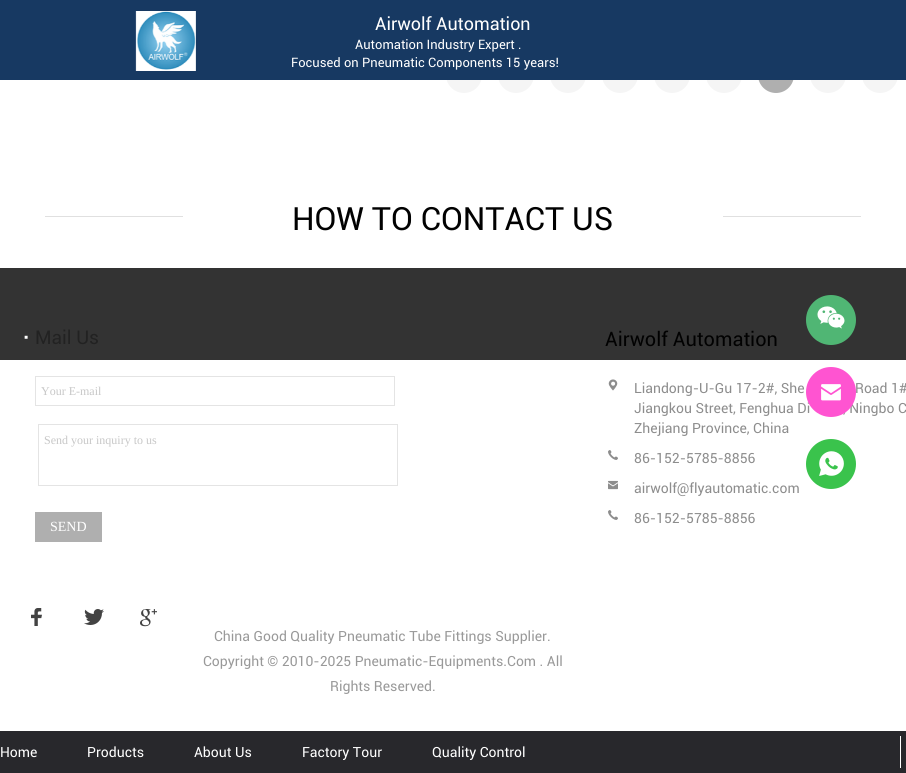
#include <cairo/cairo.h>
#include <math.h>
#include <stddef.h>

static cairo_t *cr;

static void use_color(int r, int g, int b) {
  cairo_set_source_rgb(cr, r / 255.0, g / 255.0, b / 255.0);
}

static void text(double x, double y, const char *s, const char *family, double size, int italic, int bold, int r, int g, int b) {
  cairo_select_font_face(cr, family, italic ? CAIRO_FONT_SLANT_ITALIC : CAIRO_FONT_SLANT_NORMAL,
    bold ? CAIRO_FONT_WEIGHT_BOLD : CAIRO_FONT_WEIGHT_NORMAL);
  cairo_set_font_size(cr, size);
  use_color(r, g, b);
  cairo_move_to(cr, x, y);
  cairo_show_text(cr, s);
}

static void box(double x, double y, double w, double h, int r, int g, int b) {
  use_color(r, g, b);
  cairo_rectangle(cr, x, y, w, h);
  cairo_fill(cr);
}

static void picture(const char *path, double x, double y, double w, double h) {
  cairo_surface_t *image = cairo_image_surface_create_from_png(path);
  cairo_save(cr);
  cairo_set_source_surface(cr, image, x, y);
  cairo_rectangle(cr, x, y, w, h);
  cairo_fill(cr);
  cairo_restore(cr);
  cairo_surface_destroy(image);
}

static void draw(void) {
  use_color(255, 255, 255);
  cairo_paint(cr);
  use_color(245, 245, 245);
  cairo_arc(cr, 464, 75, 18, 0, 2 * M_PI);
  cairo_fill(cr);
  cairo_arc(cr, 516, 75, 18, 0, 2 * M_PI);
  cairo_fill(cr);
  cairo_arc(cr, 568, 75, 18, 0, 2 * M_PI);
  cairo_fill(cr);
  cairo_arc(cr, 620, 75, 18, 0, 2 * M_PI);
  cairo_fill(cr);
  cairo_arc(cr, 672, 75, 18, 0, 2 * M_PI);
  cairo_fill(cr);
  cairo_arc(cr, 724, 75, 18, 0, 2 * M_PI);
  cairo_fill(cr);
  use_color(175, 175, 175);
  cairo_arc(cr, 776, 75, 18, 0, 2 * M_PI);
  cairo_fill(cr);
  use_color(245, 245, 245);
  cairo_arc(cr, 828, 75, 18, 0, 2 * M_PI);
  cairo_fill(cr);
  cairo_arc(cr, 880, 75, 18, 0, 2 * M_PI);
  cairo_fill(cr);
  box(0, 0, 906, 80, 23, 57, 98);
  picture("img_01.png", 135, 11, 61, 60);
  box(45, 216, 816, 1, 224, 224, 224);
  box(183, 216, 540, 1, 255, 255, 255);
  box(0, 268, 906, 92, 51, 51, 51);
  cairo_rectangle(cr, 35.5, 376.5, 359, 29);
  use_color(228, 228, 228);
  cairo_set_line_width(cr, 1);
  cairo_stroke(cr);
  cairo_rectangle(cr, 38.5, 424.5, 359, 61);
  cairo_stroke(cr);
  box(35, 512, 67, 30, 175, 175, 175);
  picture("img_02.png", 608, 379, 10, 12);
  picture("img_03.png", 608, 450, 10, 10);
  picture("img_04.png", 608, 480, 10, 10);
  picture("img_03.png", 608, 510, 10, 10);
  picture("img_05.png", 31, 608, 11, 18);
  picture("img_06.png", 84, 609, 20, 16);
  picture("img_07.png", 140, 609, 17, 18);
  use_color(80, 182, 116);
  cairo_arc(cr, 831, 320, 25, 0, 2 * M_PI);
  cairo_fill(cr);
  picture("img_08.png", 817, 306, 28, 23);
  use_color(58, 195, 76);
  cairo_arc(cr, 831, 464, 25, 0, 2 * M_PI);
  cairo_fill(cr);
  picture("img_10.png", 819, 451, 25, 25);
  box(0, 731, 906, 42, 40, 40, 44);
  box(900, 736, 1, 32, 255, 255, 255);
  text(375, 30, "Airwolf Automation", "Roboto", 18, 0, 0, 255, 255, 255);
  text(355, 49, "Automation Industry Expert .", "Roboto", 13, 0, 0, 255, 255, 255);
  text(291, 67, "Focused on Pneumatic Components 15 years!", "Roboto", 13, 0, 0, 255, 255, 255);
  text(292, 230, "HOW TO CONTACT US", "Roboto", 32, 0, 0, 1, 1, 1);
  text(24, 341, "▪", "Liberation Serif", 12, 0, 0, 255, 255, 255);
  text(35, 344, "Mail Us", "Roboto", 19, 0, 0, 34, 34, 34);
  text(41, 395, "Your E-mail", "Liberation Serif", 12, 0, 0, 199, 199, 199);
  text(44, 444, "Send your inquiry to us", "Liberation Serif", 12, 0, 0, 199, 199, 199);
  text(50, 531, "SEND", "Liberation Serif", 14, 0, 0, 255, 255, 255);
  text(605, 346, "Airwolf Automation", "Roboto", 20, 0, 0, 1, 1, 1);
  text(634, 393, "Liandong-U-Gu 17-2#, She", "Roboto", 14, 0, 0, 141, 141, 141);
  text(855, 393, "Road 1#", "Roboto", 14, 0, 0, 141, 141, 141);
  text(634, 413, "Jiangkou Street, Fenghua Di", "Roboto", 14, 0, 0, 141, 141, 141);
  text(843, 413, ", Ningbo C", "Roboto", 14, 0, 0, 141, 141, 141);
  text(634, 433, "Zhejiang Province, China", "Roboto", 14, 0, 0, 141, 141, 141);
  text(634, 463, "86-152-5785-8856", "Roboto", 14, 0, 0, 141, 141, 141);
  text(634, 493, "airwolf@flyautomatic.com", "Roboto", 14, 0, 0, 141, 141, 141);
  text(634, 523, "86-152-5785-8856", "Roboto", 14, 0, 0, 141, 141, 141);
  text(214, 641, "China Good Quality Pneumatic Tube Fittings Supplier.", "Roboto", 14, 0, 0, 153, 153, 153);
  text(203, 666, "Copyright © 2010-2025 Pneumatic-Equipments.Com . All", "Roboto", 14, 0, 0, 153, 153, 153);
  text(330, 691, "Rights Reserved.", "Roboto", 14, 0, 0, 153, 153, 153);
  use_color(255, 84, 209);
  cairo_new_path(cr);
  cairo_arc(cr, 831, 392, 25, 0, 2 * M_PI);
  cairo_fill(cr);
  picture("img_09.png", 821, 384, 20, 17);
  text(0, 757, "Home", "Roboto", 14, 0, 0, 255, 255, 255);
  text(87, 757, "Products", "Roboto", 14, 0, 0, 255, 255, 255);
  text(194, 757, "About Us", "Roboto", 14, 0, 0, 255, 255, 255);
  text(302, 757, "Factory Tour", "Roboto", 14, 0, 0, 255, 255, 255);
  text(432, 757, "Quality Control", "Roboto", 14, 0, 0, 255, 255, 255);
}

int main(void) {
  cairo_surface_t *surface = cairo_image_surface_create(CAIRO_FORMAT_RGB24, 906, 773);
  cr = cairo_create(surface);
  cairo_font_options_t *options = cairo_font_options_create();
  cairo_font_options_set_hint_metrics(options, CAIRO_HINT_METRICS_OFF);
  cairo_font_options_set_hint_style(options, CAIRO_HINT_STYLE_NONE);
  cairo_set_font_options(cr, options);
  cairo_set_miter_limit(cr, 4);
  draw();
  cairo_surface_write_to_png(surface, "out.png");
  cairo_font_options_destroy(options);
  cairo_destroy(cr);
  cairo_surface_destroy(surface);
  return 0;
}
